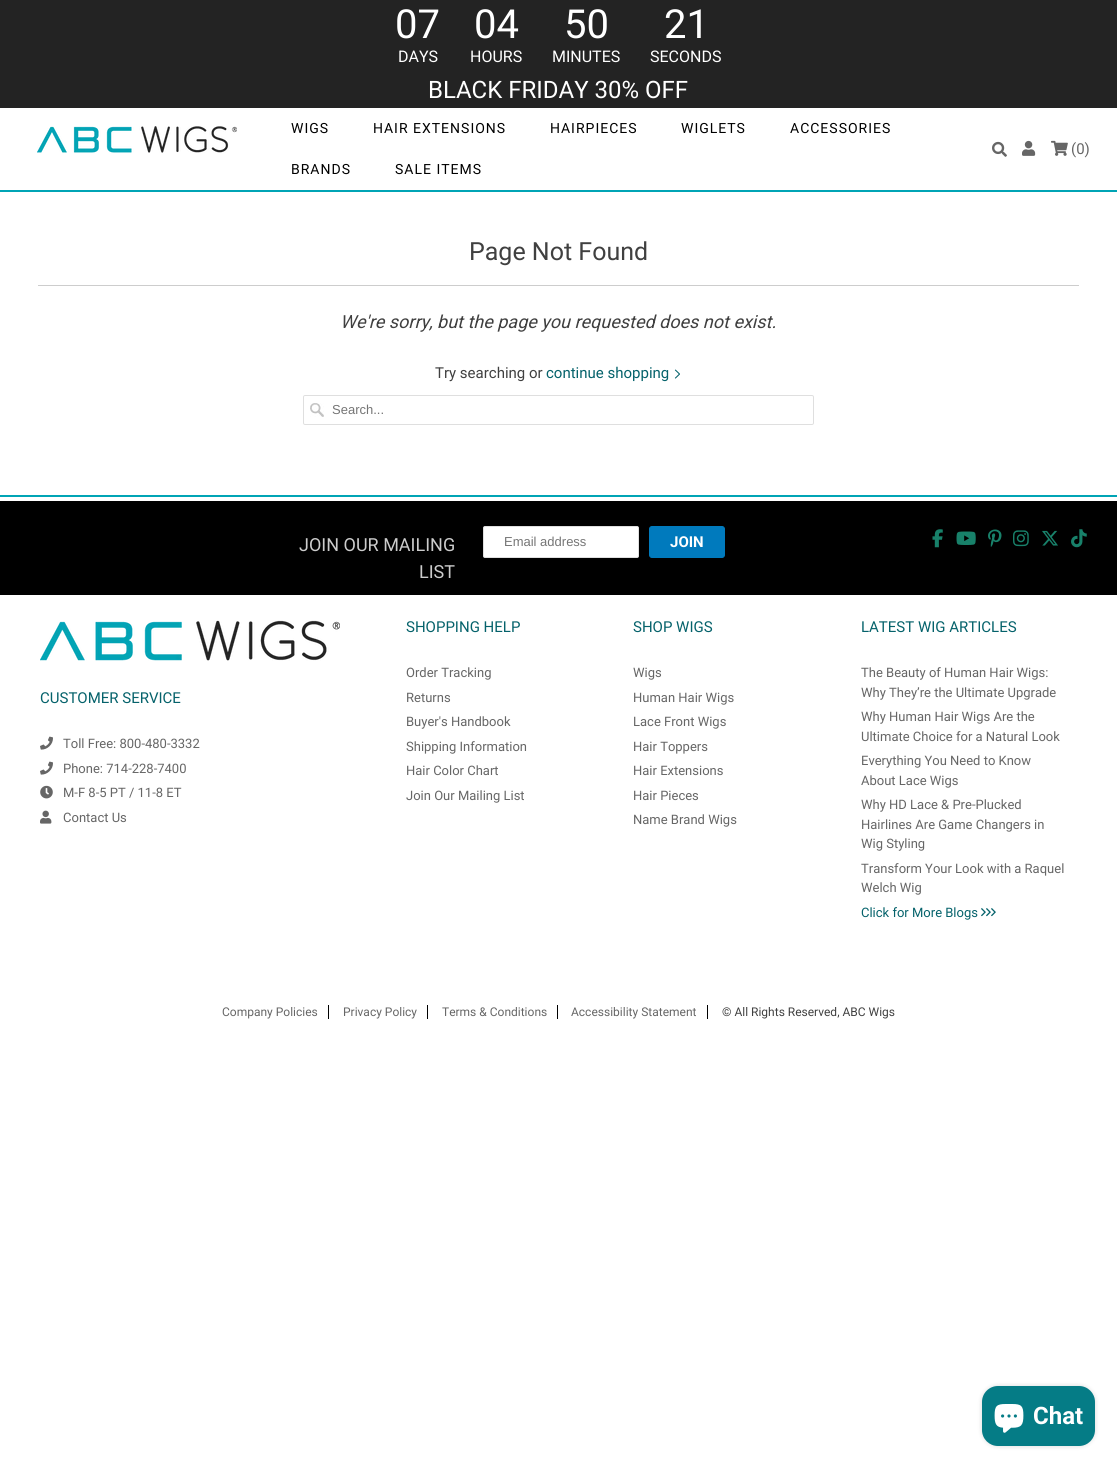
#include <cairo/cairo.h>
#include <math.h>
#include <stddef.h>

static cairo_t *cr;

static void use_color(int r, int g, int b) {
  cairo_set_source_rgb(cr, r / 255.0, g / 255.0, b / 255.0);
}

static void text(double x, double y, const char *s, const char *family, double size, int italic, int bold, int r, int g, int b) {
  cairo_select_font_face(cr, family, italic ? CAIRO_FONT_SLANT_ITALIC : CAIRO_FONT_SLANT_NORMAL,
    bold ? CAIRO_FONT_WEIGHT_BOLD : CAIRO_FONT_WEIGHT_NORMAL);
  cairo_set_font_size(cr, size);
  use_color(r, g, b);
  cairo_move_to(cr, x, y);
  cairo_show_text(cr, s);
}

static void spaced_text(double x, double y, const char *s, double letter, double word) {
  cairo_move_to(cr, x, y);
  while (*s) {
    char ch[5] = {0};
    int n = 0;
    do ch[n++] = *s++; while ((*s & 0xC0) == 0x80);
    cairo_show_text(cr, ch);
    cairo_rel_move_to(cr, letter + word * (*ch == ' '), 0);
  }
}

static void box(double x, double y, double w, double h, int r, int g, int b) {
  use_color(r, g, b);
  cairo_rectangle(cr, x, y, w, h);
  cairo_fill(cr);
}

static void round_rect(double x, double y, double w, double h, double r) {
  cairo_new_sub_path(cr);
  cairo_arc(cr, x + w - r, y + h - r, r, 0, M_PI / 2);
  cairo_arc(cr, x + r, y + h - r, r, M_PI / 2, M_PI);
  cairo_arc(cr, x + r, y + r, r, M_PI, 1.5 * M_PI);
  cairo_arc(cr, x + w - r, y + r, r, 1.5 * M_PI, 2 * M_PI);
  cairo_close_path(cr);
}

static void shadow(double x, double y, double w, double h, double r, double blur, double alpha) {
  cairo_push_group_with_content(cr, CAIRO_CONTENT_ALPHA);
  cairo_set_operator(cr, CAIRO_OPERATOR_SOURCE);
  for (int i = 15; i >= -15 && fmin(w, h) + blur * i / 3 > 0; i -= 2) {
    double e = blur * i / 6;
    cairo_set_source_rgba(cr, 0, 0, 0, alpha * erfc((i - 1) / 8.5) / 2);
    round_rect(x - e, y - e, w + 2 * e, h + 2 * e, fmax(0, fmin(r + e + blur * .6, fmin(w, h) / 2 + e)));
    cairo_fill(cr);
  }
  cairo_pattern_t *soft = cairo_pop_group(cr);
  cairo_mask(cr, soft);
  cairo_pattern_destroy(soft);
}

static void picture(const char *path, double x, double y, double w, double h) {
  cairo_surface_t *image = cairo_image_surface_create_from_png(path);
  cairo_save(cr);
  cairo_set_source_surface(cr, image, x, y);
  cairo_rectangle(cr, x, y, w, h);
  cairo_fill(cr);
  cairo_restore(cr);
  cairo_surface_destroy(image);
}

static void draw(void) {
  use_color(255, 255, 255);
  cairo_paint(cr);
  box(0, 0, 1117, 108, 35, 35, 35);
  box(0, 190, 1117, 2, 0, 164, 181);
  picture("img_01.png", 37, 126, 200, 27);
  picture("img_02.png", 992, 141, 15, 16);
  picture("img_03.png", 1022, 140, 14, 16);
  picture("img_04.png", 1051, 140, 17, 16);
  box(38, 285, 1041, 1, 205, 205, 205);
  picture("img_05.png", 674, 369, 6, 10);
  picture("img_06.png", 310, 403, 14, 14);
  round_rect(303.5, 395.5, 510, 29, 1.5);
  use_color(223, 223, 223);
  cairo_set_line_width(cr, 1);
  cairo_stroke(cr);
  box(0, 495, 1117, 2, 0, 164, 181);
  box(0, 501, 1117, 94, 0, 0, 0);
  use_color(255, 255, 255);
  round_rect(483.5, 526.5, 155, 31, 1.5);
  cairo_fill_preserve(cr);
  use_color(223, 223, 223);
  cairo_stroke(cr);
  use_color(0, 122, 189);
  round_rect(649.5, 526.5, 75, 31, 2.5);
  cairo_fill_preserve(cr);
  cairo_stroke(cr);
  picture("img_07.png", 932, 529, 11, 19);
  picture("img_08.png", 956, 531, 20, 14);
  picture("img_09.png", 988, 529, 14, 18);
  picture("img_10.png", 1013, 530, 16, 17);
  picture("img_11.png", 1042, 530, 16, 16);
  picture("img_12.png", 1071, 529, 16, 19);
  picture("img_13.png", 40, 620, 300, 41);
  picture("img_14.png", 40, 736, 13, 14);
  picture("img_14.png", 40, 761, 13, 14);
  picture("img_15.png", 40, 785, 13, 14);
  picture("img_16.png", 40, 810, 12, 14);
  picture("img_17.png", 981, 908, 5, 9);
  picture("img_17.png", 986, 908, 5, 9);
  picture("img_17.png", 991, 908, 5, 9);
  box(328, 1005, 1, 14, 0, 0, 0);
  box(427, 1005, 1, 14, 0, 0, 0);
  box(557, 1005, 1, 14, 0, 0, 0);
  box(707, 1005, 1, 14, 0, 0, 0);
  use_color(0, 0, 0);
  shadow(982, 1386, 113, 60, 16, 2.5, 0.15);
  use_color(5, 124, 134);
  round_rect(982, 1386, 113, 60, 16);
  cairo_fill(cr);
  picture("img_18.png", 994, 1404, 30, 29);
  text(395, 38, "07", "Roboto", 40, 0, 0, 255, 255, 255);
  text(398, 62, "DAYS", "Roboto", 16, 0, 0, 255, 255, 255);
  text(474, 38, "04", "Roboto", 40, 0, 0, 255, 255, 255);
  text(470, 62, "HOURS", "Roboto", 16, 0, 0, 255, 255, 255);
  text(564, 38, "50", "Roboto", 40, 0, 0, 255, 255, 255);
  text(552, 62, "MINUTES", "Roboto", 16, 0, 0, 255, 255, 255);
  text(664, 38, "21", "Roboto", 40, 0, 0, 255, 255, 255);
  text(650, 62, "SECONDS", "Roboto", 16, 0, 0, 255, 255, 255);
  text(428, 98, "BLACK FRIDAY 30% OFF", "Roboto", 24, 0, 0, 255, 255, 255);
  cairo_set_font_size(cr, 14);
  use_color(0, 0, 0);
  spaced_text(291, 133, "WIGS", 1, 0);
  spaced_text(373, 133, "HAIR EXTENSIONS", 1, 0);
  spaced_text(550, 133, "HAIRPIECES", 1, 0);
  spaced_text(681, 133, "WIGLETS", 1, 0);
  spaced_text(790, 133, "ACCESSORIES", 1, 0);
  spaced_text(291, 174, "BRANDS", 1, 0);
  spaced_text(395, 174, "SALE ITEMS", 1, 0);
  text(1071, 154, "(0)", "Roboto", 15, 0, 0, 102, 102, 102);
  text(469, 260, "Page Not Found", "Roboto", 25, 0, 0, 64, 64, 64);
  text(340, 328, "We're sorry, but the page you requested does not exist.", "Roboto", 18, 1, 0, 64, 64, 64);
  text(435, 378, "Try searching or", "Roboto", 15, 0, 0, 64, 64, 64);
  text(546, 378, "continue shopping", "Roboto", 15, 0, 0, 5, 98, 107);
  text(332, 414, "Search...", "Liberation Sans", 13, 0, 0, 117, 117, 117);
  text(299, 551, "JOIN OUR MAILING", "Roboto", 18, 0, 0, 204, 204, 204);
  text(419, 578, "LIST", "Roboto", 18, 0, 0, 204, 204, 204);
  text(504, 546, "Email address", "Liberation Sans", 13, 0, 0, 117, 117, 117);
  text(670, 547, "JOIN", "Roboto", 15, 0, 1, 255, 255, 255);
  text(40, 703, "CUSTOMER SERVICE", "Roboto", 15, 0, 0, 5, 98, 107);
  text(63, 748, "Toll Free: 800-480-3332", "Roboto", 13, 0, 0, 102, 102, 102);
  text(63, 773, "Phone: 714-228-7400", "Roboto", 13, 0, 0, 102, 102, 102);
  text(63, 797, "M-F 8-5 PT / 11-8 ET", "Roboto", 13, 0, 0, 102, 102, 102);
  text(63, 822, "Contact Us", "Roboto", 13, 0, 0, 102, 102, 102);
  text(406, 632, "SHOPPING HELP", "Roboto", 15, 0, 0, 5, 98, 107);
  text(406, 677, "Order Tracking", "Roboto", 13, 0, 0, 102, 102, 102);
  text(406, 702, "Returns", "Roboto", 13, 0, 0, 102, 102, 102);
  text(406, 726, "Buyer's Handbook", "Roboto", 13, 0, 0, 102, 102, 102);
  text(406, 751, "Shipping Information", "Roboto", 13, 0, 0, 102, 102, 102);
  text(406, 775, "Hair Color Chart", "Roboto", 13, 0, 0, 102, 102, 102);
  text(406, 800, "Join Our Mailing List", "Roboto", 13, 0, 0, 102, 102, 102);
  text(633, 632, "SHOP WIGS", "Roboto", 15, 0, 0, 5, 98, 107);
  text(633, 677, "Wigs", "Roboto", 13, 0, 0, 102, 102, 102);
  text(633, 702, "Human Hair Wigs", "Roboto", 13, 0, 0, 102, 102, 102);
  text(633, 726, "Lace Front Wigs", "Roboto", 13, 0, 0, 102, 102, 102);
  text(633, 751, "Hair Toppers", "Roboto", 13, 0, 0, 102, 102, 102);
  text(633, 775, "Hair Extensions", "Roboto", 13, 0, 0, 102, 102, 102);
  text(633, 800, "Hair Pieces", "Roboto", 13, 0, 0, 102, 102, 102);
  text(633, 824, "Name Brand Wigs", "Roboto", 13, 0, 0, 102, 102, 102);
  text(861, 632, "LATEST WIG ARTICLES", "Roboto", 15, 0, 0, 5, 98, 107);
  text(861, 677, "The Beauty of Human Hair Wigs:", "Roboto", 13, 0, 0, 102, 102, 102);
  text(861, 697, "Why They’re the Ultimate Upgrade", "Roboto", 13, 0, 0, 102, 102, 102);
  text(861, 721, "Why Human Hair Wigs Are the", "Roboto", 13, 0, 0, 102, 102, 102);
  text(861, 741, "Ultimate Choice for a Natural Look", "Roboto", 13, 0, 0, 102, 102, 102);
  text(861, 765, "Everything You Need to Know", "Roboto", 13, 0, 0, 102, 102, 102);
  text(861, 785, "About Lace Wigs", "Roboto", 13, 0, 0, 102, 102, 102);
  text(861, 809, "Why HD Lace & Pre-Plucked", "Roboto", 13, 0, 0, 102, 102, 102);
  text(861, 829, "Hairlines Are Game Changers in", "Roboto", 13, 0, 0, 102, 102, 102);
  text(861, 848, "Wig Styling", "Roboto", 13, 0, 0, 102, 102, 102);
  text(861, 873, "Transform Your Look with a Raquel", "Roboto", 13, 0, 0, 102, 102, 102);
  text(861, 892, "Welch Wig", "Roboto", 13, 0, 0, 102, 102, 102);
  text(861, 917, "Click for More Blogs", "Roboto", 13, 0, 0, 5, 98, 107);
  text(222, 1016, "Company Policies", "Roboto", 12, 0, 0, 102, 102, 102);
  text(343, 1016, "Privacy Policy", "Roboto", 12, 0, 0, 102, 102, 102);
  text(442, 1016, "Terms & Conditions", "Roboto", 12, 0, 0, 102, 102, 102);
  text(571, 1016, "Accessibility Statement", "Roboto", 12, 0, 0, 102, 102, 102);
  text(722, 1016, "© All Rights Reserved, ABC Wigs", "Roboto", 12, 0, 0, 64, 64, 64);
  text(1033, 1424, "Chat", "Roboto", 24, 0, 1, 255, 255, 255);
}

int main(void) {
  cairo_surface_t *surface = cairo_image_surface_create(CAIRO_FORMAT_RGB24, 1117, 1467);
  cr = cairo_create(surface);
  cairo_font_options_t *options = cairo_font_options_create();
  cairo_font_options_set_hint_metrics(options, CAIRO_HINT_METRICS_OFF);
  cairo_font_options_set_hint_style(options, CAIRO_HINT_STYLE_NONE);
  cairo_set_font_options(cr, options);
  cairo_set_miter_limit(cr, 4);
  draw();
  cairo_surface_write_to_png(surface, "out.png");
  cairo_font_options_destroy(options);
  cairo_destroy(cr);
  cairo_surface_destroy(surface);
  return 0;
}
